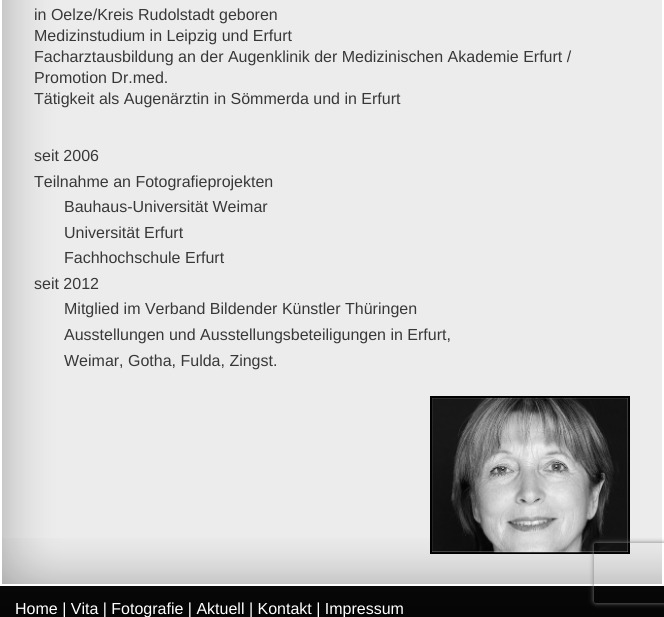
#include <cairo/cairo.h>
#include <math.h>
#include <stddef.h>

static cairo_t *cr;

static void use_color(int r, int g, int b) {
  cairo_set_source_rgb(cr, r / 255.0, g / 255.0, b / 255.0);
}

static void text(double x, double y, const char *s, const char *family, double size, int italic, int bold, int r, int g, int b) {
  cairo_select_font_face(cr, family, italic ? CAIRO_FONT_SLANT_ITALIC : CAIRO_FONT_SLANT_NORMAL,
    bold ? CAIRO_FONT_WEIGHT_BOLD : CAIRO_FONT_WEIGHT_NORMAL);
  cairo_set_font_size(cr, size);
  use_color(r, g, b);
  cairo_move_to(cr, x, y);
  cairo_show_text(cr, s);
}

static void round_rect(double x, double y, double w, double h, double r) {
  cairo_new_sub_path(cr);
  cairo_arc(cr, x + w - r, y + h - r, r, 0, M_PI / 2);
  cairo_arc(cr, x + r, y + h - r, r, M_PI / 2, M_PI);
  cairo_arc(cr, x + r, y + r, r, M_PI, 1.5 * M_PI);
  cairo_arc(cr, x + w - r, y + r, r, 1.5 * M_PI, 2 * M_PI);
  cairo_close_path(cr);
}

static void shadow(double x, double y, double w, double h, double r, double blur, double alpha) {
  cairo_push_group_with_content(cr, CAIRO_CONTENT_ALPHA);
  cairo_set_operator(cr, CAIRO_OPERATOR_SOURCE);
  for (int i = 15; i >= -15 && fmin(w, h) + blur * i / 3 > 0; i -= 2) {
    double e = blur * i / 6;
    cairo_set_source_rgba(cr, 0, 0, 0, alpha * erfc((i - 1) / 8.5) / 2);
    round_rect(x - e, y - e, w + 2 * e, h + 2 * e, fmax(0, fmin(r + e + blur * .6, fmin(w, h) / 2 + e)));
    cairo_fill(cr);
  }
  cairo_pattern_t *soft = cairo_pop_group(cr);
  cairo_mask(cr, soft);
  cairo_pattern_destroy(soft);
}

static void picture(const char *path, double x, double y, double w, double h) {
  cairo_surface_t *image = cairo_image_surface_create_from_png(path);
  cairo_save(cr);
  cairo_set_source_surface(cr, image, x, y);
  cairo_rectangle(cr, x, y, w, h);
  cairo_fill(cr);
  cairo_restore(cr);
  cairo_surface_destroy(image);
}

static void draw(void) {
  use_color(255, 255, 255);
  cairo_paint(cr);
  picture("img_01.png", 0, 586, 664, 31);
  picture("img_02.png", 2, 0, 660, 538);
  picture("img_03.png", 2, 538, 660, 46);
  cairo_rectangle(cr, 431, 397, 198, 156);
  use_color(0, 0, 0);
  cairo_stroke(cr);
  picture("img_04.png", 432, 397, 197, 156);
  cairo_save(cr);
  cairo_set_fill_rule(cr, CAIRO_FILL_RULE_EVEN_ODD);
  cairo_new_path(cr);
  cairo_move_to(cr, 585, 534);
  cairo_line_to(cr, 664, 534);
  cairo_line_to(cr, 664, 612);
  cairo_line_to(cr, 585, 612);
  cairo_close_path(cr);
  cairo_move_to(cr, 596, 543);
  cairo_line_to(cr, 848, 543);
  cairo_curve_to(cr, 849, 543, 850, 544, 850, 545);
  cairo_line_to(cr, 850, 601);
  cairo_curve_to(cr, 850, 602, 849, 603, 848, 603);
  cairo_line_to(cr, 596, 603);
  cairo_curve_to(cr, 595, 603, 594, 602, 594, 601);
  cairo_line_to(cr, 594, 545);
  cairo_curve_to(cr, 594, 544, 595, 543, 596, 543);
  cairo_close_path(cr);
  cairo_clip(cr);
  use_color(128, 128, 128);
  shadow(594, 543, 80, 60, 2, 2.5, 1);
  cairo_restore(cr);
  text(34, 20, "in Oelze/Kreis Rudolstadt geboren", "Liberation Sans", 16, 0, 0, 56, 56, 56);
  text(34, 41, "Medizinstudium in Leipzig und Erfurt", "Liberation Sans", 16, 0, 0, 56, 56, 56);
  text(34, 62, "Facharztausbildung an der Augenklinik der Medizinischen Akademie Erfurt /", "Liberation Sans", 16, 0, 0, 56, 56, 56);
  text(34, 83, "Promotion Dr.med.", "Liberation Sans", 16, 0, 0, 56, 56, 56);
  text(34, 104, "Tätigkeit als Augenärztin in Sömmerda und in Erfurt", "Liberation Sans", 16, 0, 0, 56, 56, 56);
  text(34, 161, "seit 2006", "Liberation Sans", 16, 0, 0, 56, 56, 56);
  text(34, 187, "Teilnahme an Fotografieprojekten", "Liberation Sans", 16, 0, 0, 56, 56, 56);
  text(64, 212, "Bauhaus-Universität Weimar", "Liberation Sans", 16, 0, 0, 56, 56, 56);
  text(64, 238, "Universität Erfurt", "Liberation Sans", 16, 0, 0, 56, 56, 56);
  text(64, 263, "Fachhochschule Erfurt", "Liberation Sans", 16, 0, 0, 56, 56, 56);
  text(34, 289, "seit 2012", "Liberation Sans", 16, 0, 0, 56, 56, 56);
  text(64, 314, "Mitglied im Verband Bildender Künstler Thüringen", "Liberation Sans", 16, 0, 0, 56, 56, 56);
  text(64, 340, "Ausstellungen und Ausstellungsbeteiligungen in Erfurt,", "Liberation Sans", 16, 0, 0, 56, 56, 56);
  text(64, 366, "Weimar, Gotha, Fulda, Zingst.", "Liberation Sans", 16, 0, 0, 56, 56, 56);
  text(15, 614, "Home | Vita | Fotografie | Aktuell | Kontakt | Impressum", "Liberation Sans", 16, 0, 0, 255, 255, 255);
}

int main(void) {
  cairo_surface_t *surface = cairo_image_surface_create(CAIRO_FORMAT_RGB24, 664, 617);
  cr = cairo_create(surface);
  cairo_font_options_t *options = cairo_font_options_create();
  cairo_font_options_set_hint_metrics(options, CAIRO_HINT_METRICS_OFF);
  cairo_font_options_set_hint_style(options, CAIRO_HINT_STYLE_NONE);
  cairo_set_font_options(cr, options);
  cairo_set_miter_limit(cr, 4);
  draw();
  cairo_surface_write_to_png(surface, "out.png");
  cairo_font_options_destroy(options);
  cairo_destroy(cr);
  cairo_surface_destroy(surface);
  return 0;
}
